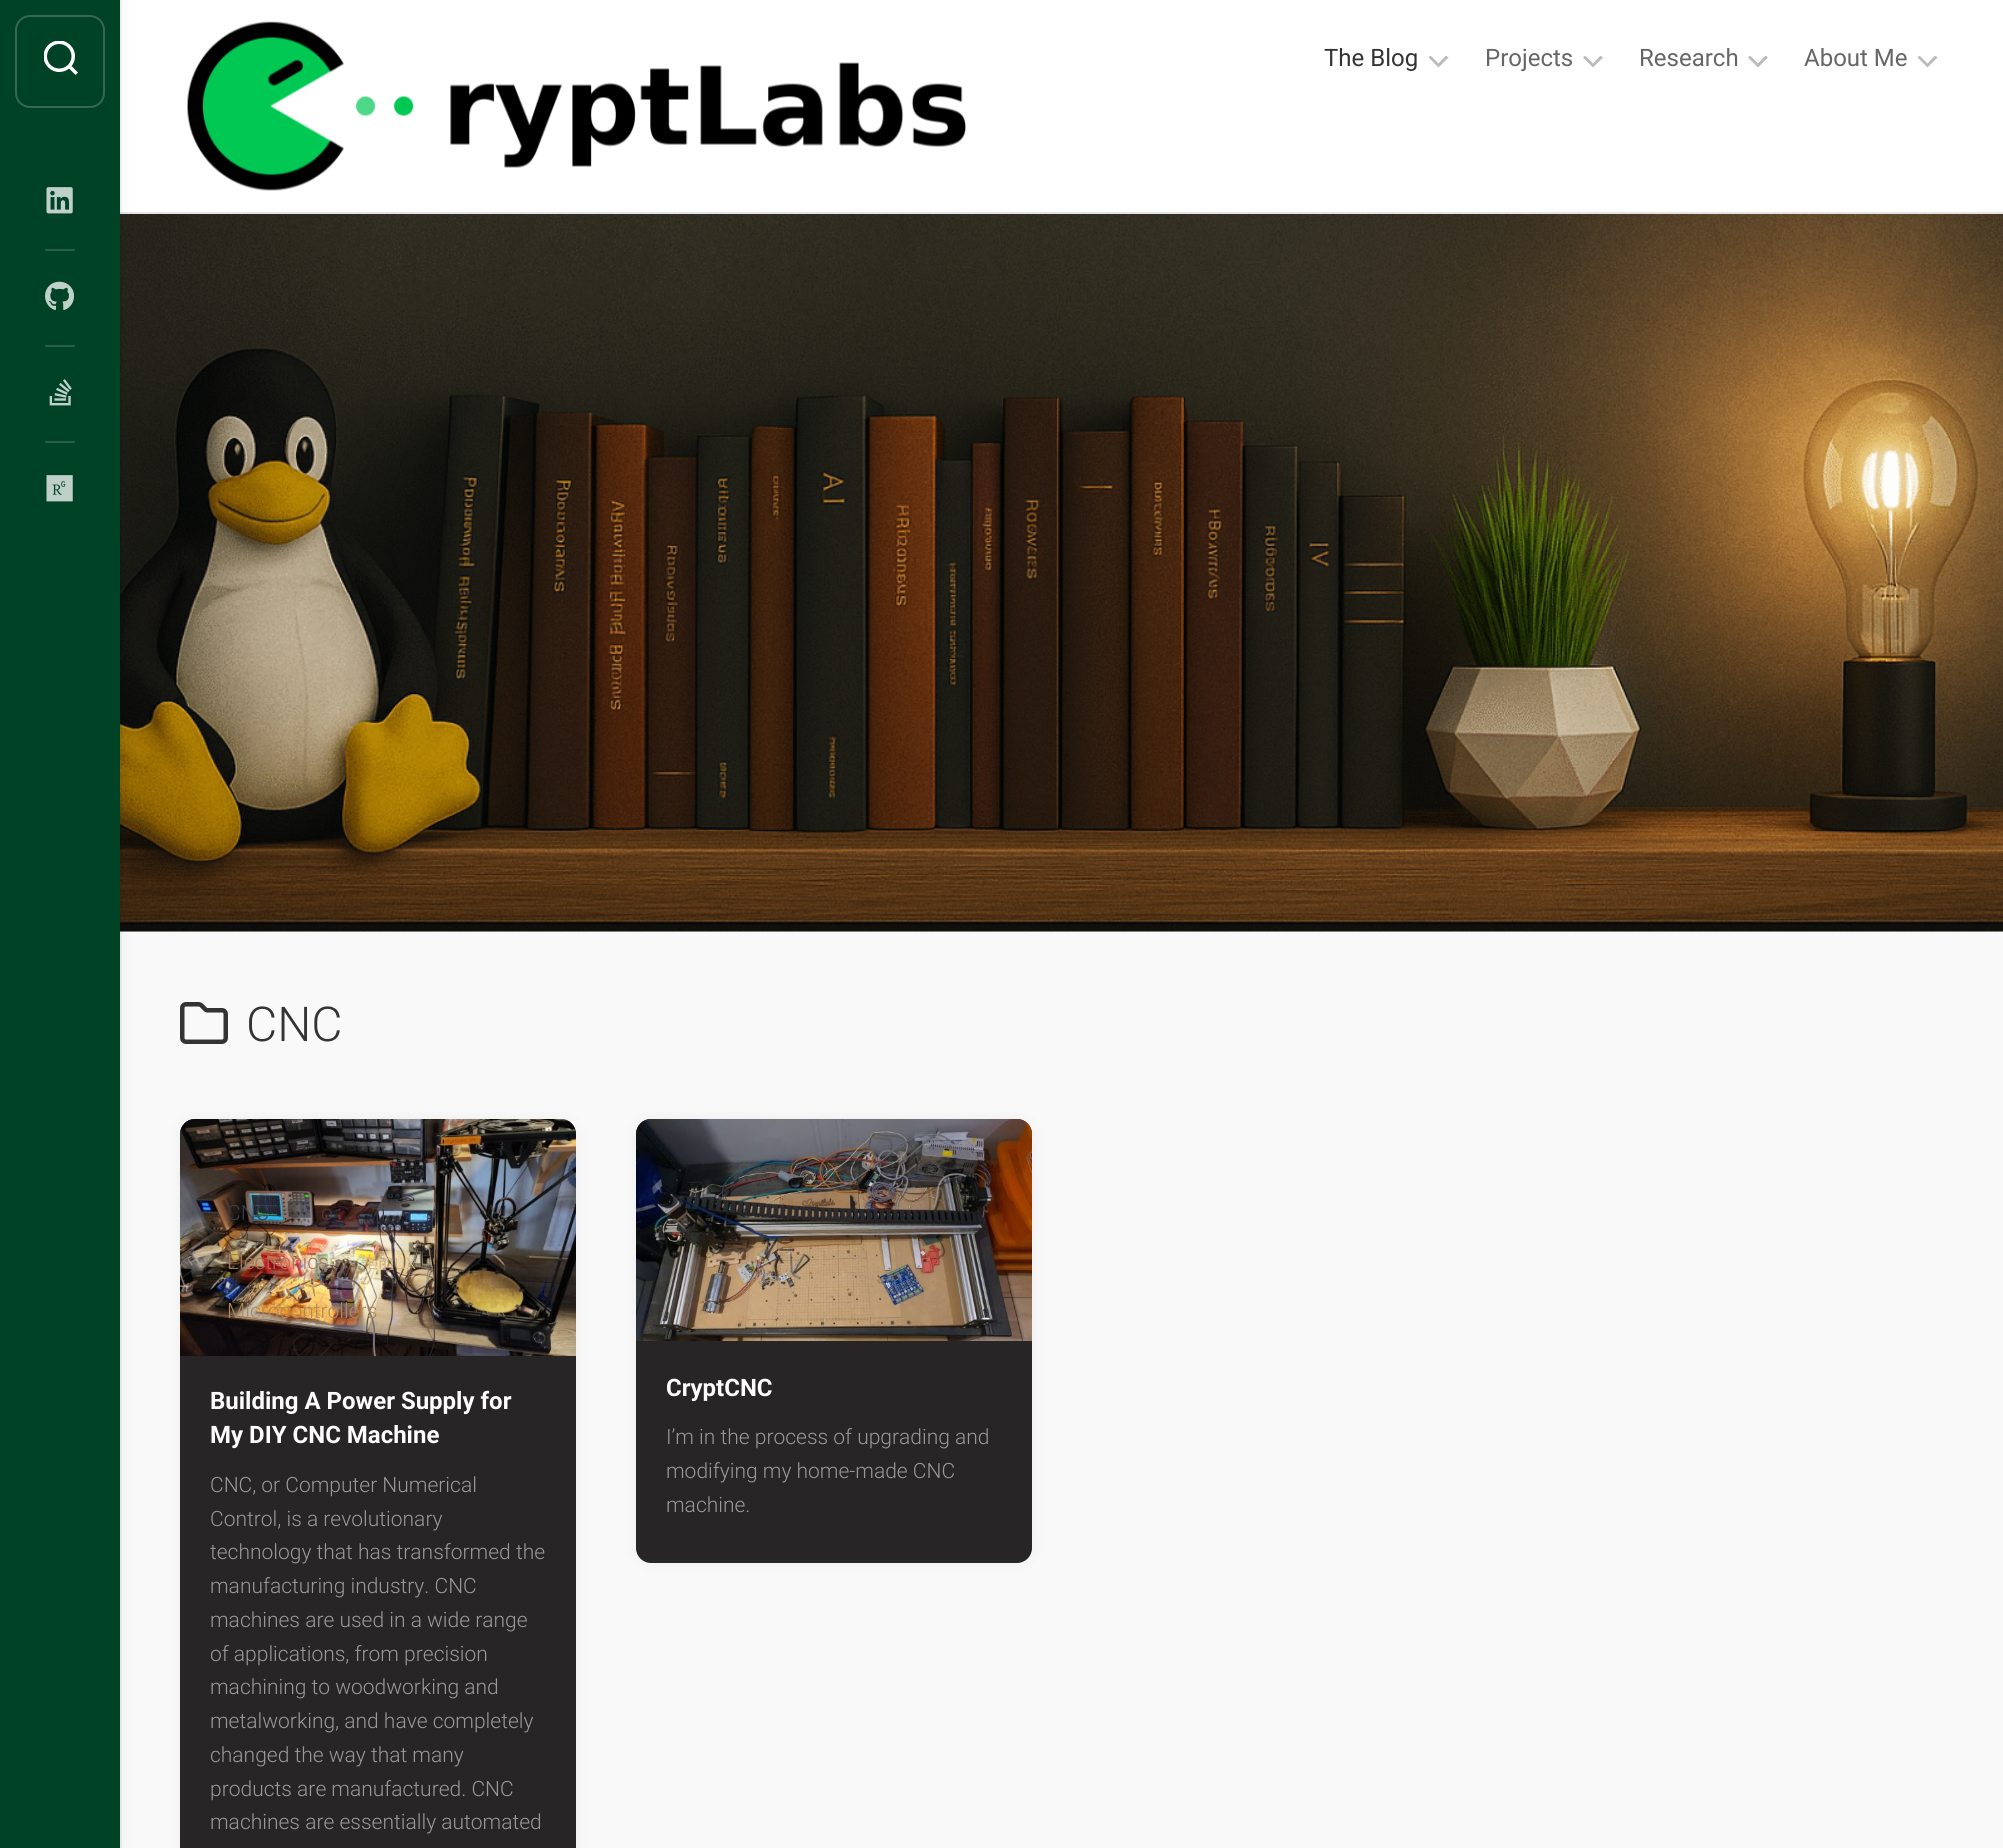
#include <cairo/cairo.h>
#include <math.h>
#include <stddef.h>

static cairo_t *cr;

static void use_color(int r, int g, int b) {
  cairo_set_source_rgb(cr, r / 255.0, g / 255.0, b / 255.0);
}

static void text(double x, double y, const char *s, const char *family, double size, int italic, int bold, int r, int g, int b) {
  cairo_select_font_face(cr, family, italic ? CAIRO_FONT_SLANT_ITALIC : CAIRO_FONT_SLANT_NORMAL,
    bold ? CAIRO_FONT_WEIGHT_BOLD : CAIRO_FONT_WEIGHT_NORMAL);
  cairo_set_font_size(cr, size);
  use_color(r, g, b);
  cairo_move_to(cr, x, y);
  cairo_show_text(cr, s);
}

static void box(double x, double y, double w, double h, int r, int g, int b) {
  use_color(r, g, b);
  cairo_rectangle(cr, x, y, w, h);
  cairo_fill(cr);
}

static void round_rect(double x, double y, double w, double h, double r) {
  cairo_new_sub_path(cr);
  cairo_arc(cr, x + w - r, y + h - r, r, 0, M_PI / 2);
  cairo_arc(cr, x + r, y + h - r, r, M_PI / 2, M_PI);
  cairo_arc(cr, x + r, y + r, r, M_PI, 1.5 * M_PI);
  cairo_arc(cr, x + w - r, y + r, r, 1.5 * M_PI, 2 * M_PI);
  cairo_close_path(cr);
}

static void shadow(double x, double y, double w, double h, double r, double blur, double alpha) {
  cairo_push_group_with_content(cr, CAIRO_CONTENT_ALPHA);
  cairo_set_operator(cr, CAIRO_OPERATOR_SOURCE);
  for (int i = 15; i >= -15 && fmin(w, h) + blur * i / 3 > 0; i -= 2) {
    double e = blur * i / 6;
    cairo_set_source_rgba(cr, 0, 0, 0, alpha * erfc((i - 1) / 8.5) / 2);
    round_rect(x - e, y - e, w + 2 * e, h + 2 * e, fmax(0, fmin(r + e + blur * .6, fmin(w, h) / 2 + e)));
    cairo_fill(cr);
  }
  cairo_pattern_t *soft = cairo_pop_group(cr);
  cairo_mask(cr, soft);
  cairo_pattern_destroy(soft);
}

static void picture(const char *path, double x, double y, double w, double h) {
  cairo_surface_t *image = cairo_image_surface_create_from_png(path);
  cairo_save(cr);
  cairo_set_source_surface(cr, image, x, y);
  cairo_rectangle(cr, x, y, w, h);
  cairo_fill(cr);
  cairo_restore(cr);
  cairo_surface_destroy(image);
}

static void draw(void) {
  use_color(249, 249, 249);
  cairo_paint(cr);
  box(120, 0, 1883, 212, 255, 255, 255);
  box(120, 212, 1883, 2, 229, 229, 229);
  box(120, 931, 1883, 1, 238, 238, 238);
  picture("img_07.png", 120, 214, 1883, 718);
  cairo_set_source_rgba(cr, 0, 0, 0, 0.05);
  cairo_rectangle(cr, 120, 0, 2, 1848);
  cairo_fill(cr);
  use_color(0, 0, 0);
  shadow(0, 0, 120, 1848, 0, 7.5, 0.05);
  box(0, 0, 120, 1848, 0, 66, 37);
  round_rect(16, 16, 88, 91, 14);
  use_color(51, 104, 81);
  cairo_stroke(cr);
  picture("img_01.png", 44, 41, 34, 34);
  picture("img_02.png", 46, 187, 27, 27);
  box(45, 249, 30, 2, 38, 94, 70);
  picture("img_03.png", 45, 281, 29, 29);
  box(45, 345, 30, 2, 38, 94, 70);
  picture("img_04.png", 49, 379, 23, 27);
  box(45, 441, 30, 2, 38, 94, 70);
  picture("img_05.png", 46, 475, 27, 27);
  picture("img_06.png", 187, 21, 779, 170);
  cairo_save(cr);
  cairo_rectangle(cr, 1428, 56, 21, 12);
  cairo_clip(cr);
  use_color(187, 187, 187);
  cairo_set_fill_rule(cr, CAIRO_FILL_RULE_EVEN_ODD);
  cairo_new_path(cr);
  cairo_move_to(cr, 1438.5, 63.5);
  cairo_line_to(cr, 1446, 55.5);
  cairo_line_to(cr, 1448.5, 57.5);
  cairo_line_to(cr, 1438.5, 67.5);
  cairo_line_to(cr, 1428.5, 57.5);
  cairo_line_to(cr, 1430.5, 55.5);
  cairo_close_path(cr);
  cairo_fill(cr);
  cairo_restore(cr);
  cairo_save(cr);
  cairo_rectangle(cr, 1583, 56, 21, 12);
  cairo_clip(cr);
  use_color(187, 187, 187);
  cairo_set_fill_rule(cr, CAIRO_FILL_RULE_EVEN_ODD);
  cairo_new_path(cr);
  cairo_move_to(cr, 1593, 63.5);
  cairo_line_to(cr, 1600.5, 55.5);
  cairo_line_to(cr, 1603, 57.5);
  cairo_line_to(cr, 1593, 67.5);
  cairo_line_to(cr, 1583, 57.5);
  cairo_line_to(cr, 1585, 55.5);
  cairo_close_path(cr);
  cairo_fill(cr);
  cairo_restore(cr);
  cairo_save(cr);
  cairo_rectangle(cr, 1748, 56, 21, 12);
  cairo_clip(cr);
  use_color(187, 187, 187);
  cairo_set_fill_rule(cr, CAIRO_FILL_RULE_EVEN_ODD);
  cairo_new_path(cr);
  cairo_move_to(cr, 1758, 63.5);
  cairo_line_to(cr, 1765.5, 55.5);
  cairo_line_to(cr, 1768, 57.5);
  cairo_line_to(cr, 1758, 67.5);
  cairo_line_to(cr, 1748, 57.5);
  cairo_line_to(cr, 1750, 55.5);
  cairo_close_path(cr);
  cairo_fill(cr);
  cairo_restore(cr);
  cairo_save(cr);
  cairo_rectangle(cr, 1917, 56, 21, 12);
  cairo_clip(cr);
  use_color(187, 187, 187);
  cairo_set_fill_rule(cr, CAIRO_FILL_RULE_EVEN_ODD);
  cairo_new_path(cr);
  cairo_move_to(cr, 1927.5, 63.5);
  cairo_line_to(cr, 1935, 55.5);
  cairo_line_to(cr, 1937.5, 57.5);
  cairo_line_to(cr, 1927.5, 67.5);
  cairo_line_to(cr, 1917.5, 57.5);
  cairo_line_to(cr, 1919.5, 55.5);
  cairo_close_path(cr);
  cairo_fill(cr);
  cairo_restore(cr);
  picture("img_08.png", 180, 1002, 48, 42);
  use_color(0, 0, 0);
  shadow(180, 1119, 396, 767, 15, 7.5, 0.05);
  use_color(39, 37, 37);
  round_rect(180, 1119, 396, 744, 15);
  cairo_fill(cr);
  picture("img_09.png", 180, 1119, 396, 237);
  use_color(0, 0, 0);
  shadow(636, 1119, 396, 444, 15, 7.5, 0.05);
  use_color(39, 37, 37);
  round_rect(636, 1119, 396, 444, 15);
  cairo_fill(cr);
  picture("img_10.png", 636, 1119, 396, 222);
  text(1324, 66, "The Blog", "Roboto", 24, 0, 0, 51, 51, 51);
  text(1485, 66, "Projects", "Roboto", 24, 0, 0, 102, 102, 102);
  text(1639, 66, "Research", "Roboto", 24, 0, 0, 102, 102, 102);
  text(1804, 66, "About Me", "Roboto", 24, 0, 0, 102, 102, 102);
  text(246, 1041, "CNC", "Roboto Light", 48, 0, 0, 51, 51, 51);
  text(227, 1220, "CNC", "Roboto Light", 21, 0, 0, 53, 65, 71);
  text(321, 1220, "o", "Roboto Light", 21, 0, 0, 69, 59, 63);
  text(381, 1220, "i", "Roboto Light", 21, 0, 0, 69, 59, 63);
  text(227, 1269, "Electronics", "Roboto Light", 21, 0, 0, 168, 116, 94);
  text(367, 1269, "Linux", "Roboto Light", 21, 0, 0, 205, 184, 141);
  text(227, 1318, "Microcontrollers", "Roboto Light", 21, 0, 0, 176, 136, 89);
  text(210, 1409, "Building A Power Supply for", "Roboto", 24, 0, 1, 255, 255, 255);
  text(210, 1443, "My DIY CNC Machine", "Roboto", 24, 0, 1, 255, 255, 255);
  text(210, 1492, "CNC, or Computer Numerical", "Roboto Light", 21, 0, 0, 153, 153, 153);
  text(210, 1526, "Control, is a revolutionary", "Roboto Light", 21, 0, 0, 153, 153, 153);
  text(210, 1559, "technology that has transformed the", "Roboto Light", 21, 0, 0, 153, 153, 153);
  text(210, 1593, "manufacturing industry. CNC", "Roboto Light", 21, 0, 0, 153, 153, 153);
  text(210, 1627, "machines are used in a wide range", "Roboto Light", 21, 0, 0, 153, 153, 153);
  text(210, 1661, "of applications, from precision", "Roboto Light", 21, 0, 0, 153, 153, 153);
  text(210, 1694, "machining to woodworking and", "Roboto Light", 21, 0, 0, 153, 153, 153);
  text(210, 1728, "metalworking, and have completely", "Roboto Light", 21, 0, 0, 153, 153, 153);
  text(210, 1762, "changed the way that many", "Roboto Light", 21, 0, 0, 153, 153, 153);
  text(210, 1796, "products are manufactured. CNC", "Roboto Light", 21, 0, 0, 153, 153, 153);
  text(210, 1829, "machines are essentially automated", "Roboto Light", 21, 0, 0, 153, 153, 153);
  text(666, 1396, "CryptCNC", "Roboto", 24, 0, 1, 255, 255, 255);
  text(666, 1444, "I’m in the process of upgrading and", "Roboto Light", 21, 0, 0, 153, 153, 153);
  text(666, 1478, "modifying my home-made CNC", "Roboto Light", 21, 0, 0, 153, 153, 153);
  text(666, 1512, "machine.", "Roboto Light", 21, 0, 0, 153, 153, 153);
}

int main(void) {
  cairo_surface_t *surface = cairo_image_surface_create(CAIRO_FORMAT_RGB24, 2003, 1848);
  cr = cairo_create(surface);
  cairo_font_options_t *options = cairo_font_options_create();
  cairo_font_options_set_hint_metrics(options, CAIRO_HINT_METRICS_OFF);
  cairo_font_options_set_hint_style(options, CAIRO_HINT_STYLE_NONE);
  cairo_set_font_options(cr, options);
  cairo_set_miter_limit(cr, 4);
  draw();
  cairo_surface_write_to_png(surface, "out.png");
  cairo_font_options_destroy(options);
  cairo_destroy(cr);
  cairo_surface_destroy(surface);
  return 0;
}
